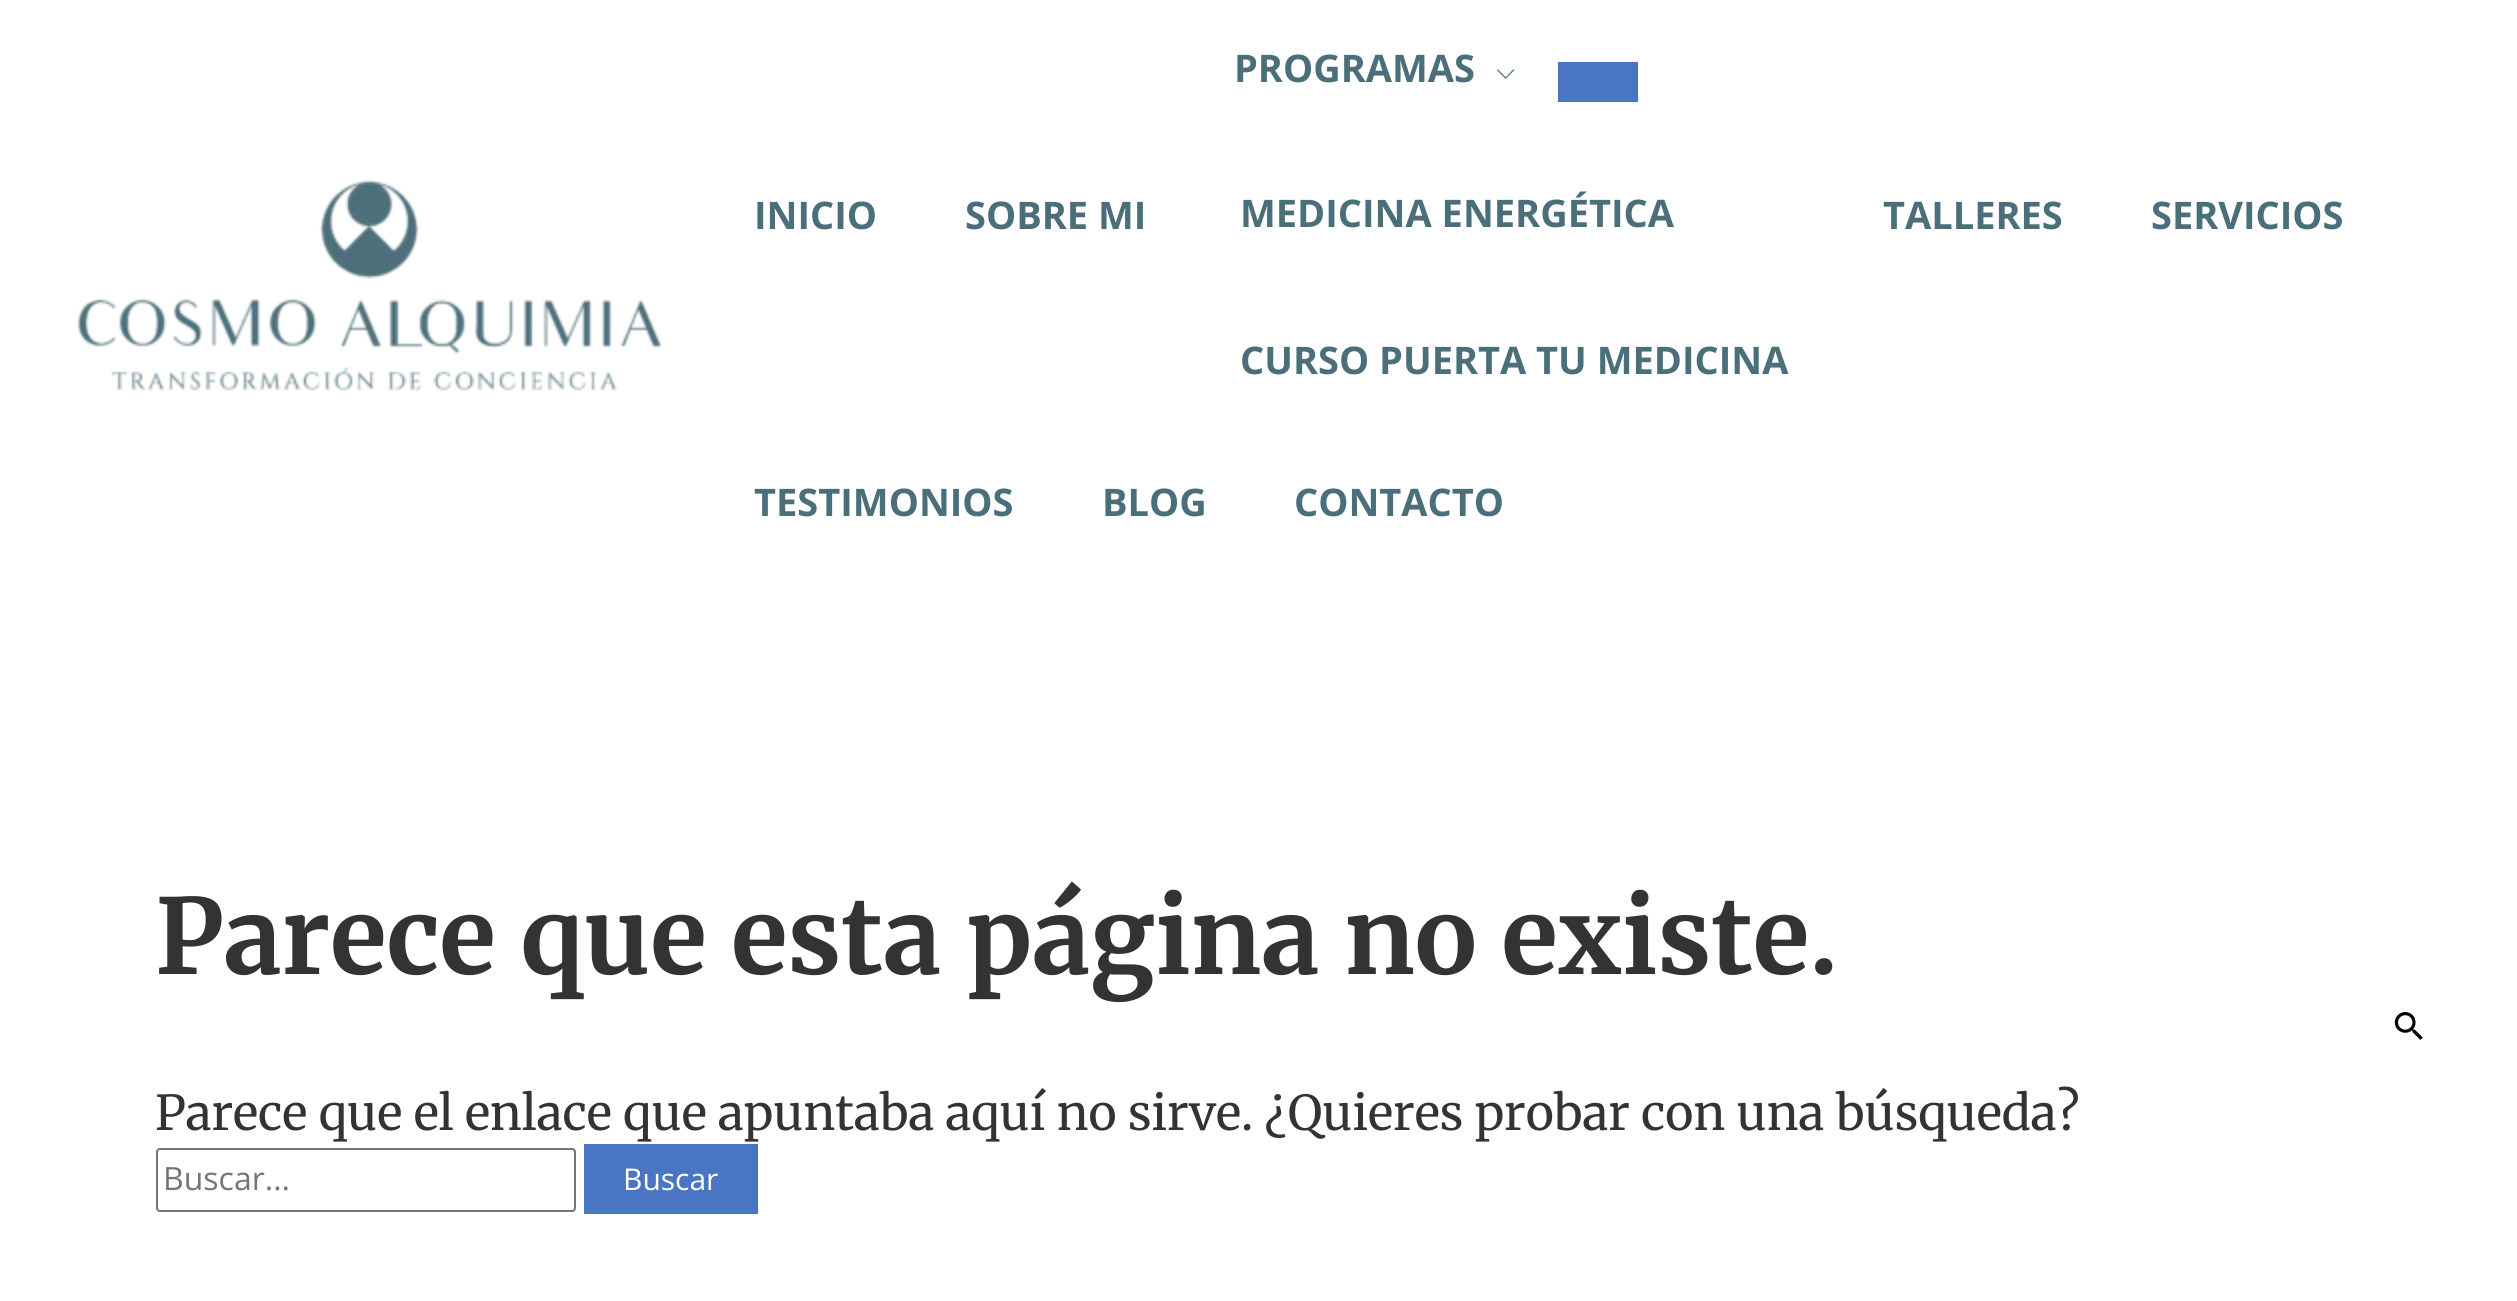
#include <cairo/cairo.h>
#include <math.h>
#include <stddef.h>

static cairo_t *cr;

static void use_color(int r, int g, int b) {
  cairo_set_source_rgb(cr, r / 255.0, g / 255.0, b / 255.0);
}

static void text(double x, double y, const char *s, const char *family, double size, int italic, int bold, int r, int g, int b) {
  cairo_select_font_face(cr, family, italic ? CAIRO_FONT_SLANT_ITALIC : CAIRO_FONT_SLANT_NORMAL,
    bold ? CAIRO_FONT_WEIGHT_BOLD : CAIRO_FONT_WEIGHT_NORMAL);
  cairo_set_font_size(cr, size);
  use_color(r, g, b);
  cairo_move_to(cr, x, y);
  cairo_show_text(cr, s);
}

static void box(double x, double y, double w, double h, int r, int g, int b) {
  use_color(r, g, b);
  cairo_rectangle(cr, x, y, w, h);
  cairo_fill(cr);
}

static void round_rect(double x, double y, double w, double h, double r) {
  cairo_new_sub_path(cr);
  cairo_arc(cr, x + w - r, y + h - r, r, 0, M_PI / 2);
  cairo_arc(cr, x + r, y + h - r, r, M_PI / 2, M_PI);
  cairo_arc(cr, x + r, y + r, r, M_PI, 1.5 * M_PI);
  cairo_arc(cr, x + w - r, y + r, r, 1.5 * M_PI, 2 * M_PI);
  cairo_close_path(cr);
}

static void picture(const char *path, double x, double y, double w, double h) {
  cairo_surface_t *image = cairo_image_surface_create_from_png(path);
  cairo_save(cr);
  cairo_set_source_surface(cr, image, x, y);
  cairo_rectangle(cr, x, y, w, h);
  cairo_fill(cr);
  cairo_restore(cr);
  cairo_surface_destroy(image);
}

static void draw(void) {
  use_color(255, 255, 255);
  cairo_paint(cr);
  picture("img_01.png", 77, 179, 585, 212);
  picture("img_02.png", 1497, 69, 18, 10);
  box(1558, 62, 80, 40, 74, 117, 194);
  picture("img_03.png", 2394, 1012, 29, 28);
  round_rect(157, 1149, 418, 62, 3);
  use_color(118, 118, 118);
  cairo_stroke(cr);
  box(584, 1144, 174, 70, 74, 117, 194);
  text(754, 229, "INICIO", "Open Sans", 38, 0, 1, 75, 111, 122);
  text(965, 229, "SOBRE MI", "Open Sans", 38, 0, 1, 75, 111, 122);
  text(1234, 82, "PROGRAMAS", "Open Sans", 38, 0, 1, 75, 111, 122);
  text(1240, 227, "MEDICINA ENERGÉTICA", "Open Sans", 38, 0, 1, 75, 111, 122);
  text(1240, 374, "CURSO PUERTA TU MEDICINA", "Open Sans", 38, 0, 1, 75, 111, 122);
  text(1883, 229, "TALLERES", "Open Sans", 38, 0, 1, 75, 111, 122);
  text(2151, 229, "SERVICIOS", "Open Sans", 38, 0, 1, 75, 111, 122);
  text(754, 516, "TESTIMONIOS", "Open Sans", 38, 0, 1, 75, 111, 122);
  text(1102, 516, "BLOG", "Open Sans", 38, 0, 1, 75, 111, 122);
  text(1294, 516, "CONTACTO", "Open Sans", 38, 0, 1, 75, 111, 122);
  text(155, 974, "Parece que esta página no existe.", "Merriweather", 104, 0, 1, 51, 51, 51);
  text(155, 1130, "Parece que el enlace que apuntaba aquí no sirve. ¿Quieres probar con una búsqueda?", "Merriweather", 48, 0, 0, 51, 51, 51);
  text(163, 1190, "Buscar...", "Open Sans", 32, 0, 0, 117, 117, 117);
  text(623, 1190, "Buscar", "Open Sans", 30, 0, 0, 255, 255, 255);
}

int main(void) {
  cairo_surface_t *surface = cairo_image_surface_create(CAIRO_FORMAT_RGB24, 2517, 1301);
  cr = cairo_create(surface);
  cairo_font_options_t *options = cairo_font_options_create();
  cairo_font_options_set_hint_metrics(options, CAIRO_HINT_METRICS_OFF);
  cairo_font_options_set_hint_style(options, CAIRO_HINT_STYLE_NONE);
  cairo_set_font_options(cr, options);
  cairo_set_miter_limit(cr, 4);
  draw();
  cairo_surface_write_to_png(surface, "out.png");
  cairo_font_options_destroy(options);
  cairo_destroy(cr);
  cairo_surface_destroy(surface);
  return 0;
}
